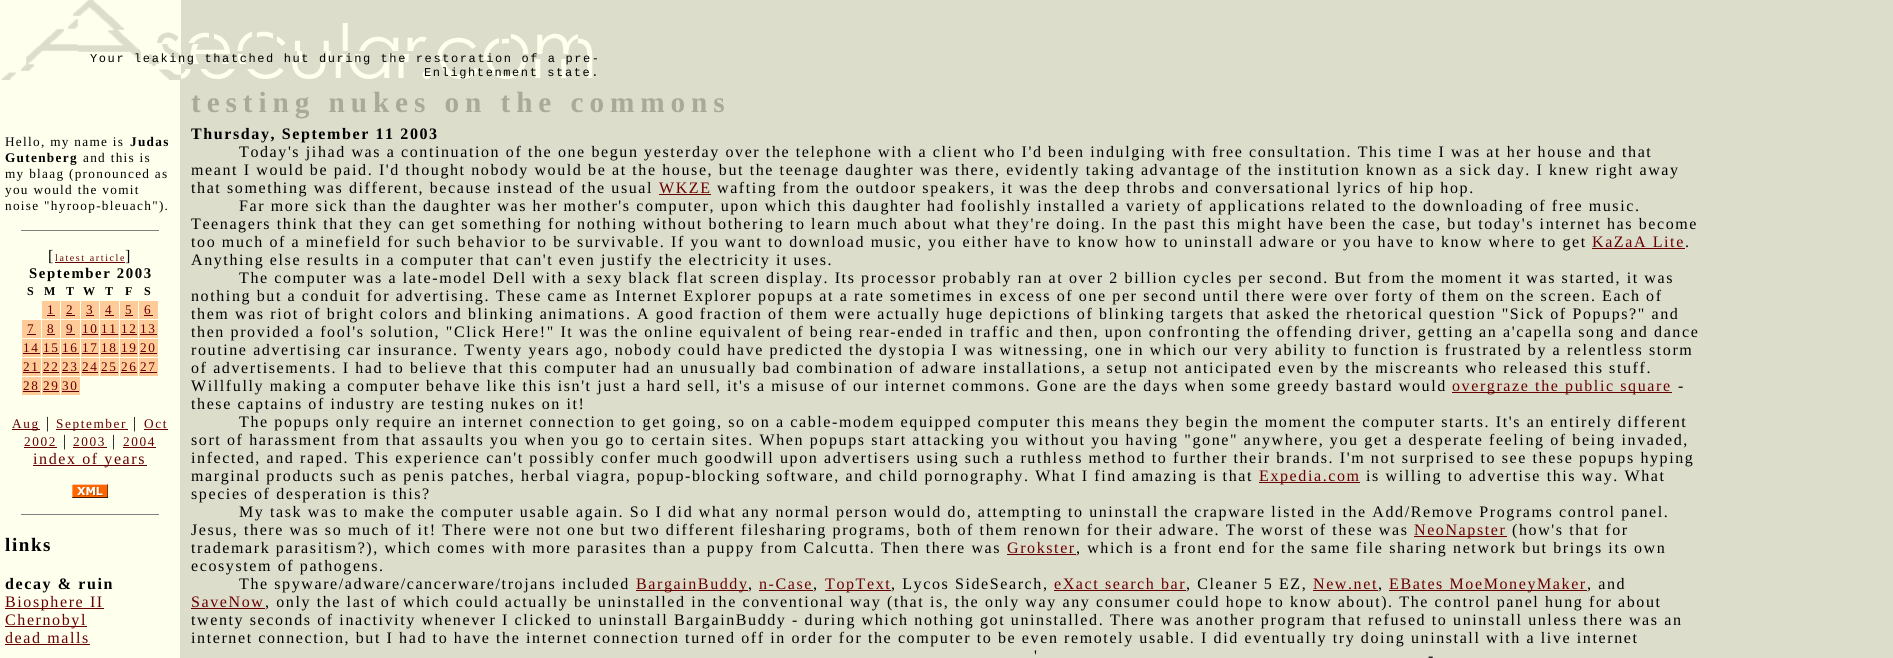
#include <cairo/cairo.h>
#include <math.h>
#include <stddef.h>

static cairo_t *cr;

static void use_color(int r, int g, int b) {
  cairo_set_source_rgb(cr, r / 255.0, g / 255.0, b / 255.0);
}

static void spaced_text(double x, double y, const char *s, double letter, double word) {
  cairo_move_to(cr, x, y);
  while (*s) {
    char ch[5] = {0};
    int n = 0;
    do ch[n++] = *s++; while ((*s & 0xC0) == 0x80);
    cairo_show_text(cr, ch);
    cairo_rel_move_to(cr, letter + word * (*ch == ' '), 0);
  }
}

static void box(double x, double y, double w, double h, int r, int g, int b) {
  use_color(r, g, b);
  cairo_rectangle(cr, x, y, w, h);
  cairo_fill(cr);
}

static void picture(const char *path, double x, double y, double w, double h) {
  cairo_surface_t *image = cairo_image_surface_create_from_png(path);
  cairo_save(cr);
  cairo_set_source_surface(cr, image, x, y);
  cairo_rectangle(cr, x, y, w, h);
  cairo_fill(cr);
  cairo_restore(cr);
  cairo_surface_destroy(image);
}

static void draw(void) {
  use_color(221, 221, 204);
  cairo_paint(cr);
  picture("img_01.png", 0, 0, 593, 80);
  box(0, 80, 180, 578, 255, 255, 238);
  box(21, 230, 138, 1, 128, 128, 128);
  box(55, 262, 70, 1, 102, 0, 0);
  box(42, 301, 18, 18, 255, 204, 153);
  box(47, 315, 8, 1, 102, 0, 0);
  box(61, 301, 19, 18, 255, 204, 153);
  box(66, 315, 9, 1, 102, 0, 0);
  box(81, 301, 18, 18, 255, 204, 153);
  box(86, 315, 8, 1, 102, 0, 0);
  box(100, 301, 19, 18, 255, 204, 153);
  box(105, 315, 9, 1, 102, 0, 0);
  box(120, 301, 18, 18, 255, 204, 153);
  box(125, 315, 8, 1, 102, 0, 0);
  box(139, 301, 19, 18, 255, 204, 153);
  box(144, 315, 9, 1, 102, 0, 0);
  box(22, 320, 19, 18, 255, 204, 153);
  box(27, 334, 9, 1, 102, 0, 0);
  box(42, 320, 18, 18, 255, 204, 153);
  box(47, 334, 8, 1, 102, 0, 0);
  box(61, 320, 19, 18, 255, 204, 153);
  box(66, 334, 9, 1, 102, 0, 0);
  box(81, 320, 18, 18, 255, 204, 153);
  box(82, 334, 16, 1, 102, 0, 0);
  box(100, 320, 19, 18, 255, 204, 153);
  box(101, 334, 17, 1, 102, 0, 0);
  box(120, 320, 18, 18, 255, 204, 153);
  box(121, 334, 16, 1, 102, 0, 0);
  box(139, 320, 19, 18, 255, 204, 153);
  box(140, 334, 17, 1, 102, 0, 0);
  box(22, 339, 19, 18, 255, 204, 153);
  box(23, 353, 17, 1, 102, 0, 0);
  box(42, 339, 18, 18, 255, 204, 153);
  box(43, 353, 16, 1, 102, 0, 0);
  box(61, 339, 19, 18, 255, 204, 153);
  box(62, 353, 17, 1, 102, 0, 0);
  box(81, 339, 18, 18, 255, 204, 153);
  box(82, 353, 16, 1, 102, 0, 0);
  box(100, 339, 19, 18, 255, 204, 153);
  box(101, 353, 17, 1, 102, 0, 0);
  box(120, 339, 18, 18, 255, 204, 153);
  box(121, 353, 16, 1, 102, 0, 0);
  box(139, 339, 19, 18, 255, 204, 153);
  box(140, 353, 17, 1, 102, 0, 0);
  box(22, 358, 19, 18, 255, 204, 153);
  box(23, 372, 17, 1, 102, 0, 0);
  box(42, 358, 18, 18, 255, 204, 153);
  box(43, 372, 16, 1, 102, 0, 0);
  box(61, 358, 19, 18, 255, 204, 153);
  box(62, 372, 17, 1, 102, 0, 0);
  box(81, 358, 18, 18, 255, 204, 153);
  box(82, 372, 16, 1, 102, 0, 0);
  box(100, 358, 19, 18, 255, 204, 153);
  box(101, 372, 17, 1, 102, 0, 0);
  box(120, 358, 18, 18, 255, 204, 153);
  box(121, 372, 16, 1, 102, 0, 0);
  box(139, 358, 19, 18, 255, 204, 153);
  box(140, 372, 17, 1, 102, 0, 0);
  box(22, 377, 19, 18, 255, 204, 153);
  box(23, 391, 17, 1, 102, 0, 0);
  box(42, 377, 18, 18, 255, 204, 153);
  box(43, 391, 16, 1, 102, 0, 0);
  box(61, 377, 19, 18, 255, 204, 153);
  box(62, 391, 17, 1, 102, 0, 0);
  box(12, 429, 28, 1, 102, 0, 0);
  box(56, 429, 72, 1, 102, 0, 0);
  box(144, 429, 24, 1, 102, 0, 0);
  box(24, 447, 33, 1, 102, 0, 0);
  box(73, 447, 34, 1, 102, 0, 0);
  box(123, 447, 33, 1, 102, 0, 0);
  box(33, 465, 114, 1, 102, 0, 0);
  picture("img_02.png", 72, 484, 36, 14);
  box(21, 514, 138, 1, 128, 128, 128);
  box(5, 608, 99, 1, 102, 0, 0);
  box(5, 626, 82, 1, 102, 0, 0);
  box(5, 644, 85, 1, 102, 0, 0);
  box(659, 194, 52, 1, 102, 0, 0);
  box(1592, 248, 93, 1, 102, 0, 0);
  box(1452, 392, 220, 1, 102, 0, 0);
  box(1259, 482, 101, 1, 102, 0, 0);
  box(1414, 536, 93, 1, 102, 0, 0);
  box(1007, 554, 69, 1, 102, 0, 0);
  box(636, 590, 112, 1, 102, 0, 0);
  box(759, 590, 54, 1, 102, 0, 0);
  box(825, 590, 66, 1, 102, 0, 0);
  box(1054, 590, 132, 1, 102, 0, 0);
  box(1313, 590, 65, 1, 102, 0, 0);
  box(1389, 590, 198, 1, 102, 0, 0);
  box(191, 608, 74, 1, 102, 0, 0);
  cairo_select_font_face(cr, "Liberation Mono", CAIRO_FONT_SLANT_NORMAL, CAIRO_FONT_WEIGHT_NORMAL);
  cairo_set_font_size(cr, 12);
  use_color(0, 0, 0);
  spaced_text(90, 62, "Your leaking thatched hut during the restoration of a pre-", 1.6, 0);
  spaced_text(424, 76, "Enlightenment state.", 1.6, 0);
  cairo_select_font_face(cr, "Liberation Serif", CAIRO_FONT_SLANT_NORMAL, CAIRO_FONT_WEIGHT_NORMAL);
  cairo_set_font_size(cr, 13.25);
  spaced_text(5, 146, "Hello, my name is", 1.3, 0);
  cairo_select_font_face(cr, "Liberation Serif", CAIRO_FONT_SLANT_NORMAL, CAIRO_FONT_WEIGHT_BOLD);
  spaced_text(130, 146, "Judas", 1.3, 0);
  spaced_text(5, 162, "Gutenberg", 1.3, 0);
  cairo_select_font_face(cr, "Liberation Serif", CAIRO_FONT_SLANT_NORMAL, CAIRO_FONT_WEIGHT_NORMAL);
  spaced_text(83, 162, "and this is", 1.3, 0);
  spaced_text(5, 178, "my blaag (pronounced as", 1.3, 0);
  spaced_text(5, 194, "you would the vomit", 1.3, 0);
  spaced_text(5, 210, "noise \"hyroop-bleuach\").", 1.3, 0);
  cairo_set_font_size(cr, 16);
  spaced_text(48, 261, "[", 1.6, 0);
  cairo_set_font_size(cr, 10);
  use_color(102, 0, 0);
  spaced_text(55, 261, "latest article", 1.6, 0);
  cairo_set_font_size(cr, 16);
  use_color(0, 0, 0);
  spaced_text(125, 261, "]", 1.6, 0);
  cairo_select_font_face(cr, "Liberation Serif", CAIRO_FONT_SLANT_NORMAL, CAIRO_FONT_WEIGHT_BOLD);
  cairo_set_font_size(cr, 14.75);
  spaced_text(29, 278, "September 2003", 1.6, 0);
  cairo_set_font_size(cr, 12);
  spaced_text(27, 295, "S", 1.6, 0);
  spaced_text(44, 295, "M", 1.6, 0);
  spaced_text(66, 295, "T", 1.6, 0);
  spaced_text(83, 295, "W", 1.6, 0);
  spaced_text(105, 295, "T", 1.6, 0);
  spaced_text(125, 295, "F", 1.6, 0);
  spaced_text(144, 295, "S", 1.6, 0);
  cairo_select_font_face(cr, "Liberation Serif", CAIRO_FONT_SLANT_NORMAL, CAIRO_FONT_WEIGHT_NORMAL);
  cairo_set_font_size(cr, 13.25);
  use_color(102, 0, 0);
  spaced_text(47, 314, "1", 1.6, 0);
  spaced_text(66, 314, "2", 1.6, 0);
  spaced_text(86, 314, "3", 1.6, 0);
  spaced_text(105, 314, "4", 1.6, 0);
  spaced_text(125, 314, "5", 1.6, 0);
  spaced_text(144, 314, "6", 1.6, 0);
  spaced_text(27, 333, "7", 1.6, 0);
  spaced_text(47, 333, "8", 1.6, 0);
  spaced_text(66, 333, "9", 1.6, 0);
  spaced_text(82, 333, "10", 1.6, 0);
  spaced_text(101, 333, "11", 1.6, 0);
  spaced_text(121, 333, "12", 1.6, 0);
  spaced_text(140, 333, "13", 1.6, 0);
  spaced_text(23, 352, "14", 1.6, 0);
  spaced_text(43, 352, "15", 1.6, 0);
  spaced_text(62, 352, "16", 1.6, 0);
  spaced_text(82, 352, "17", 1.6, 0);
  spaced_text(101, 352, "18", 1.6, 0);
  spaced_text(121, 352, "19", 1.6, 0);
  spaced_text(140, 352, "20", 1.6, 0);
  spaced_text(23, 371, "21", 1.6, 0);
  spaced_text(43, 371, "22", 1.6, 0);
  spaced_text(62, 371, "23", 1.6, 0);
  spaced_text(82, 371, "24", 1.6, 0);
  spaced_text(101, 371, "25", 1.6, 0);
  spaced_text(121, 371, "26", 1.6, 0);
  spaced_text(140, 371, "27", 1.6, 0);
  spaced_text(23, 390, "28", 1.6, 0);
  spaced_text(43, 390, "29", 1.6, 0);
  spaced_text(62, 390, "30", 1.6, 0);
  spaced_text(12, 428, "Aug", 1.6, 0);
  cairo_set_font_size(cr, 16);
  use_color(0, 0, 0);
  spaced_text(46, 428, "|", 1.6, 0);
  cairo_set_font_size(cr, 13.25);
  use_color(102, 0, 0);
  spaced_text(56, 428, "September", 1.6, 0);
  cairo_set_font_size(cr, 16);
  use_color(0, 0, 0);
  spaced_text(133, 428, "|", 1.6, 0);
  cairo_set_font_size(cr, 13.25);
  use_color(102, 0, 0);
  spaced_text(144, 428, "Oct", 1.6, 0);
  spaced_text(24, 446, "2002", 1.6, 0);
  cairo_set_font_size(cr, 16);
  use_color(0, 0, 0);
  spaced_text(63, 446, "|", 1.6, 0);
  cairo_set_font_size(cr, 13.25);
  use_color(102, 0, 0);
  spaced_text(73, 446, "2003", 1.6, 0);
  cairo_set_font_size(cr, 16);
  use_color(0, 0, 0);
  spaced_text(112, 446, "|", 1.6, 0);
  cairo_set_font_size(cr, 13.25);
  use_color(102, 0, 0);
  spaced_text(123, 446, "2004", 1.6, 0);
  cairo_set_font_size(cr, 16);
  spaced_text(33, 464, "index of years", 1.6, 0);
  cairo_select_font_face(cr, "Liberation Serif", CAIRO_FONT_SLANT_NORMAL, CAIRO_FONT_WEIGHT_BOLD);
  cairo_set_font_size(cr, 19);
  use_color(0, 0, 0);
  spaced_text(5, 551, "links", 1.6, 0);
  cairo_set_font_size(cr, 16);
  spaced_text(5, 589, "decay & ruin", 1.6, 0);
  cairo_select_font_face(cr, "Liberation Serif", CAIRO_FONT_SLANT_NORMAL, CAIRO_FONT_WEIGHT_NORMAL);
  use_color(102, 0, 0);
  spaced_text(5, 607, "Biosphere II", 1.6, 0);
  spaced_text(5, 625, "Chernobyl", 1.6, 0);
  spaced_text(5, 643, "dead malls", 1.6, 0);
  cairo_select_font_face(cr, "Liberation Serif", CAIRO_FONT_SLANT_NORMAL, CAIRO_FONT_WEIGHT_BOLD);
  cairo_set_font_size(cr, 29.3);
  use_color(170, 170, 153);
  spaced_text(191, 112, "testing nukes on the commons", 5.9, 0);
  cairo_set_font_size(cr, 16);
  use_color(0, 0, 0);
  spaced_text(191, 139, "Thursday, September 11 2003", 1.6, 0);
  cairo_select_font_face(cr, "Liberation Serif", CAIRO_FONT_SLANT_NORMAL, CAIRO_FONT_WEIGHT_NORMAL);
  spaced_text(239, 157, "Today's jihad was a continuation of the one begun yesterday over the telephone with a client who I'd been indulging with free consultation. This time I was at her house and that", 1.6, 0);
  spaced_text(191, 175, "meant I would be paid. I'd thought nobody would be at the house, but the teenage daughter was there, evidently taking advantage of the institution known as a sick day. I knew right away", 1.6, 0);
  spaced_text(191, 193, "that something was different, because instead of the usual", 1.6, 0);
  use_color(102, 0, 0);
  spaced_text(659, 193, "WKZE", 1.6, 0);
  use_color(0, 0, 0);
  spaced_text(717, 193, "wafting from the outdoor speakers, it was the deep throbs and conversational lyrics of hip hop.", 1.6, 0);
  spaced_text(239, 211, "Far more sick than the daughter was her mother's computer, upon which this daughter had foolishly installed a variety of applications related to the downloading of free music.", 1.6, 0);
  spaced_text(191, 229, "Teenagers think that they can get something for nothing without bothering to learn much about what they're doing. In the past this might have been the case, but today's internet has become", 1.6, 0);
  spaced_text(191, 247, "too much of a minefield for such behavior to be survivable. If you want to download music, you either have to know how to uninstall adware or you have to know where to get", 1.6, 0);
  use_color(102, 0, 0);
  spaced_text(1592, 247, "KaZaA Lite", 1.6, 0);
  use_color(0, 0, 0);
  spaced_text(1685, 247, ".", 1.6, 0);
  spaced_text(191, 265, "Anything else results in a computer that can't even justify the electricity it uses.", 1.6, 0);
  spaced_text(239, 283, "The computer was a late-model Dell with a sexy black flat screen display. Its processor probably ran at over 2 billion cycles per second. But from the moment it was started, it was", 1.6, 0);
  spaced_text(191, 301, "nothing but a conduit for advertising. These came as Internet Explorer popups at a rate sometimes in excess of one per second until there were over forty of them on the screen. Each of", 1.6, 0);
  spaced_text(191, 319, "them was riot of bright colors and blinking animations. A good fraction of them were actually huge depictions of blinking targets that asked the rhetorical question \"Sick of Popups?\" and", 1.6, 0);
  spaced_text(191, 337, "then provided a fool's solution, \"Click Here!\" It was the online equivalent of being rear-ended in traffic and then, upon confronting the offending driver, getting an a'capella song and dance", 1.6, 0);
  spaced_text(191, 355, "routine advertising car insurance. Twenty years ago, nobody could have predicted the dystopia I was witnessing, one in which our very ability to function is frustrated by a relentless storm", 1.6, 0);
  spaced_text(191, 373, "of advertisements. I had to believe that this computer had an unusually bad combination of adware installations, a setup not anticipated even by the miscreants who released this stuff.", 1.6, 0);
  spaced_text(191, 391, "Willfully making a computer behave like this isn't just a hard sell, it's a misuse of our internet commons. Gone are the days when some greedy bastard would", 1.6, 0);
  use_color(102, 0, 0);
  spaced_text(1452, 391, "overgraze the public square", 1.6, 0);
  use_color(0, 0, 0);
  spaced_text(1678, 391, "-", 1.6, 0);
  spaced_text(191, 409, "these captains of industry are testing nukes on it!", 1.6, 0);
  spaced_text(239, 427, "The popups only require an internet connection to get going, so on a cable-modem equipped computer this means they begin the moment the computer starts. It's an entirely different", 1.6, 0);
  spaced_text(191, 445, "sort of harassment from that assaults you when you go to certain sites. When popups start attacking you without you having \"gone\" anywhere, you get a desperate feeling of being invaded,", 1.6, 0);
  spaced_text(191, 463, "infected, and raped. This experience can't possibly confer much goodwill upon advertisers using such a ruthless method to further their brands. I'm not surprised to see these popups hyping", 1.6, 0);
  spaced_text(191, 481, "marginal products such as penis patches, herbal viagra, popup-blocking software, and child pornography. What I find amazing is that", 1.6, 0);
  use_color(102, 0, 0);
  spaced_text(1259, 481, "Expedia.com", 1.6, 0);
  use_color(0, 0, 0);
  spaced_text(1366, 481, "is willing to advertise this way. What", 1.6, 0);
  spaced_text(191, 499, "species of desperation is this?", 1.6, 0);
  spaced_text(239, 517, "My task was to make the computer usable again. So I did what any normal person would do, attempting to uninstall the crapware listed in the Add/Remove Programs control panel.", 1.6, 0);
  spaced_text(191, 535, "Jesus, there was so much of it! There were not one but two different filesharing programs, both of them renown for their adware. The worst of these was", 1.6, 0);
  use_color(102, 0, 0);
  spaced_text(1414, 535, "NeoNapster", 1.6, 0);
  use_color(0, 0, 0);
  spaced_text(1512, 535, "(how's that for", 1.6, 0);
  spaced_text(191, 553, "trademark parasitism?), which comes with more parasites than a puppy from Calcutta. Then there was", 1.6, 0);
  use_color(102, 0, 0);
  spaced_text(1007, 553, "Grokster", 1.6, 0);
  use_color(0, 0, 0);
  spaced_text(1076, 553, ", which is a front end for the same file sharing network but brings its own", 1.6, 0);
  spaced_text(191, 571, "ecosystem of pathogens.", 1.6, 0);
  spaced_text(239, 589, "The spyware/adware/cancerware/trojans included", 1.6, 0);
  use_color(102, 0, 0);
  spaced_text(636, 589, "BargainBuddy", 1.6, 0);
  use_color(0, 0, 0);
  spaced_text(748, 589, ",", 1.6, 0);
  use_color(102, 0, 0);
  spaced_text(759, 589, "n-Case", 1.6, 0);
  use_color(0, 0, 0);
  spaced_text(813, 589, ",", 1.6, 0);
  use_color(102, 0, 0);
  spaced_text(825, 589, "TopText", 1.6, 0);
  use_color(0, 0, 0);
  spaced_text(891, 589, ", Lycos SideSearch,", 1.6, 0);
  use_color(102, 0, 0);
  spaced_text(1054, 589, "eXact search bar", 1.6, 0);
  use_color(0, 0, 0);
  spaced_text(1186, 589, ", Cleaner 5 EZ,", 1.6, 0);
  use_color(102, 0, 0);
  spaced_text(1313, 589, "New.net", 1.6, 0);
  use_color(0, 0, 0);
  spaced_text(1378, 589, ",", 1.6, 0);
  use_color(102, 0, 0);
  spaced_text(1389, 589, "EBates MoeMoneyMaker", 1.6, 0);
  use_color(0, 0, 0);
  spaced_text(1587, 589, ", and", 1.6, 0);
  use_color(102, 0, 0);
  spaced_text(191, 607, "SaveNow", 1.6, 0);
  use_color(0, 0, 0);
  spaced_text(265, 607, ", only the last of which could actually be uninstalled in the conventional way (that is, the only way any consumer could hope to know about). The control panel hung for about", 1.6, 0);
  spaced_text(191, 625, "twenty seconds of inactivity whenever I clicked to uninstall BargainBuddy - during which nothing got uninstalled. There was another program that refused to uninstall unless there was an", 1.6, 0);
  spaced_text(191, 643, "internet connection, but I had to have the internet connection turned off in order for the computer to be even remotely usable. I did eventually try doing uninstall with a live internet", 1.6, 0);
  spaced_text(1034, 661, "'", 1.6, 0);
  spaced_text(1428, 661, "-", 1.6, 0);
}

int main(void) {
  cairo_surface_t *surface = cairo_image_surface_create(CAIRO_FORMAT_RGB24, 1893, 658);
  cr = cairo_create(surface);
  cairo_font_options_t *options = cairo_font_options_create();
  cairo_font_options_set_hint_metrics(options, CAIRO_HINT_METRICS_OFF);
  cairo_font_options_set_hint_style(options, CAIRO_HINT_STYLE_NONE);
  cairo_set_font_options(cr, options);
  cairo_set_miter_limit(cr, 4);
  draw();
  cairo_surface_write_to_png(surface, "out.png");
  cairo_font_options_destroy(options);
  cairo_destroy(cr);
  cairo_surface_destroy(surface);
  return 0;
}
